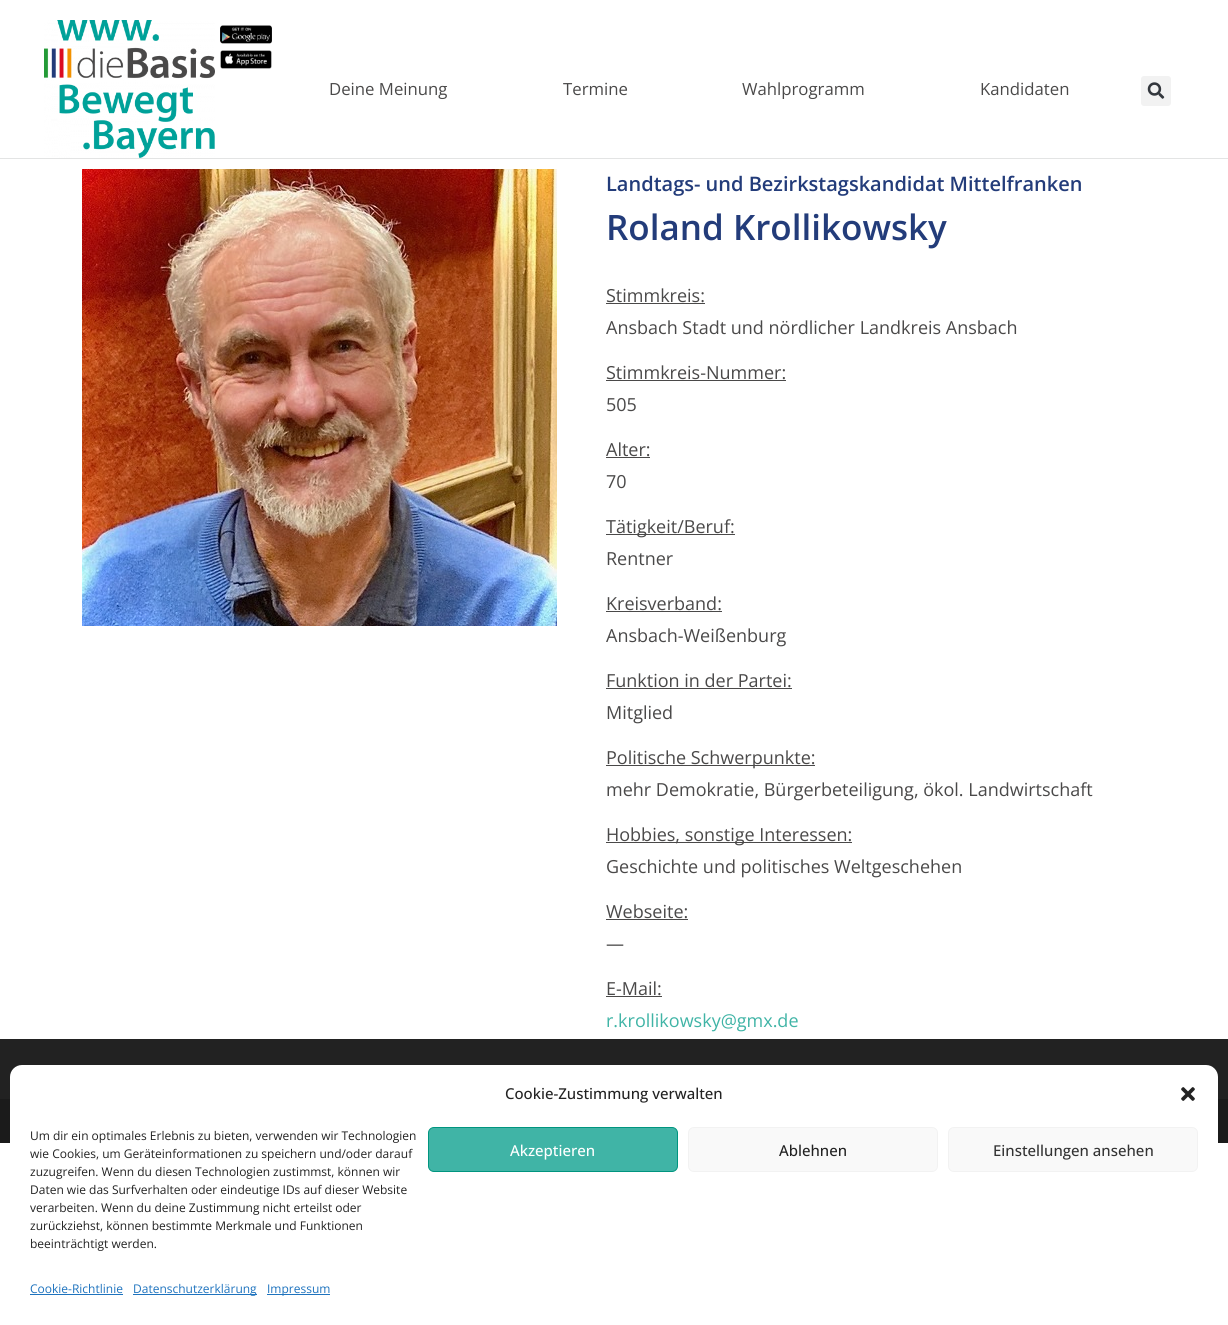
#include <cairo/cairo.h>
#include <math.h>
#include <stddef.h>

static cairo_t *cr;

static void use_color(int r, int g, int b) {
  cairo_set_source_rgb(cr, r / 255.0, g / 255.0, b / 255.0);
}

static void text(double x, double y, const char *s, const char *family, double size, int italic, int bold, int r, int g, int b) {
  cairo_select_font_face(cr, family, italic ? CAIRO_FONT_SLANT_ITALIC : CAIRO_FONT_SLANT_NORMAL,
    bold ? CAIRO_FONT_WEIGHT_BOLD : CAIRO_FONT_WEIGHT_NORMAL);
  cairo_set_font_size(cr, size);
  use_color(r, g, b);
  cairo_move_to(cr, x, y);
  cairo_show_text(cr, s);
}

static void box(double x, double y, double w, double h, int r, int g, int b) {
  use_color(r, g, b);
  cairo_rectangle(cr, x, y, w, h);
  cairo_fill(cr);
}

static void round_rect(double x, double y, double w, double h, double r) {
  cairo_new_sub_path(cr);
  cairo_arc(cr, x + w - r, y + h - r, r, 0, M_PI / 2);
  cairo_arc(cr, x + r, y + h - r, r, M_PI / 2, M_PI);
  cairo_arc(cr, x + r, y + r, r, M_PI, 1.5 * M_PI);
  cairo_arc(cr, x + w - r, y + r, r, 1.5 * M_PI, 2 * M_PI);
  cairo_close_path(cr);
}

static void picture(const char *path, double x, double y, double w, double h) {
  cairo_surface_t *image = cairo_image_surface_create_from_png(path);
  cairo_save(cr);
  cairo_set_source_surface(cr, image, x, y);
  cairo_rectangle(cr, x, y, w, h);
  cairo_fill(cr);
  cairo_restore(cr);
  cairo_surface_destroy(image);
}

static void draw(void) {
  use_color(255, 255, 255);
  cairo_paint(cr);
  picture("img_01.png", 44, 20, 171, 138);
  picture("img_02.png", 220, 25, 52, 19);
  picture("img_03.png", 220, 50, 52, 19);
  use_color(242, 242, 242);
  round_rect(1141, 76, 30, 30, 3);
  cairo_fill(cr);
  picture("img_04.png", 1147, 82, 18, 17);
  box(0, 158, 1228, 1, 227, 228, 228);
  picture("img_05.png", 82, 169, 475, 457);
  box(606, 303, 99, 1, 74, 73, 73);
  box(606, 380, 180, 1, 74, 73, 73);
  box(606, 457, 44, 1, 74, 73, 73);
  box(606, 534, 129, 1, 74, 73, 73);
  box(606, 611, 116, 1, 74, 73, 73);
  box(606, 688, 186, 1, 74, 73, 73);
  box(606, 765, 209, 1, 74, 73, 73);
  box(606, 842, 246, 1, 74, 73, 73);
  box(606, 919, 82, 1, 74, 73, 73);
  box(606, 996, 56, 1, 74, 73, 73);
  box(0, 1039, 1228, 60, 34, 34, 34);
  box(0, 1099, 1228, 44, 27, 27, 27);
  use_color(255, 255, 255);
  round_rect(10, 1065, 1208, 250, 12);
  cairo_fill(cr);
  picture("img_06.png", 1181, 1087, 14, 14);
  use_color(64, 180, 166);
  round_rect(428.5, 1127.5, 249, 44, 5.5);
  cairo_fill_preserve(cr);
  use_color(0, 149, 127);
  cairo_set_line_width(cr, 1);
  cairo_stroke(cr);
  use_color(249, 249, 249);
  round_rect(688.5, 1127.5, 249, 44, 5.5);
  cairo_fill_preserve(cr);
  use_color(242, 242, 242);
  cairo_stroke(cr);
  use_color(249, 249, 249);
  round_rect(948.5, 1127.5, 249, 44, 5.5);
  cairo_fill_preserve(cr);
  use_color(242, 242, 242);
  cairo_stroke(cr);
  box(30, 1294, 93, 1, 30, 115, 190);
  box(133, 1294, 124, 1, 30, 115, 190);
  box(267, 1294, 63, 1, 30, 115, 190);
  text(329, 95, "Deine Meinung", "Open Sans", 16.75, 0, 0, 74, 73, 73);
  text(563, 95, "Termine", "Open Sans", 16.75, 0, 0, 74, 73, 73);
  text(742, 95, "Wahlprogramm", "Open Sans", 16.75, 0, 0, 74, 73, 73);
  text(980, 95, "Kandidaten", "Open Sans", 16.75, 0, 0, 74, 73, 73);
  text(606, 191, "Landtags- und Bezirkstagskandidat Mittelfranken", "Open Sans SemiBold", 20, 0, 0, 35, 60, 122);
  text(606, 240, "Roland Krollikowsky", "Open Sans SemiBold", 35, 0, 0, 35, 60, 122);
  text(606, 302, "Stimmkreis:", "Open Sans", 18, 0, 0, 74, 73, 73);
  text(606, 334, "Ansbach Stadt und nördlicher Landkreis Ansbach", "Open Sans", 18, 0, 0, 74, 73, 73);
  text(606, 379, "Stimmkreis-Nummer:", "Open Sans", 18, 0, 0, 74, 73, 73);
  text(606, 411, "505", "Open Sans", 18, 0, 0, 74, 73, 73);
  text(606, 456, "Alter:", "Open Sans", 18, 0, 0, 74, 73, 73);
  text(606, 488, "70", "Open Sans", 18, 0, 0, 74, 73, 73);
  text(606, 533, "Tätigkeit/Beruf:", "Open Sans", 18, 0, 0, 74, 73, 73);
  text(606, 565, "Rentner", "Open Sans", 18, 0, 0, 74, 73, 73);
  text(606, 610, "Kreisverband:", "Open Sans", 18, 0, 0, 74, 73, 73);
  text(606, 642, "Ansbach-Weißenburg", "Open Sans", 18, 0, 0, 74, 73, 73);
  text(606, 687, "Funktion in der Partei:", "Open Sans", 18, 0, 0, 74, 73, 73);
  text(606, 719, "Mitglied", "Open Sans", 18, 0, 0, 74, 73, 73);
  text(606, 764, "Politische Schwerpunkte:", "Open Sans", 18, 0, 0, 74, 73, 73);
  text(606, 796, "mehr Demokratie, Bürgerbeteiligung, ökol. Landwirtschaft", "Open Sans", 18, 0, 0, 74, 73, 73);
  text(606, 841, "Hobbies, sonstige Interessen:", "Open Sans", 18, 0, 0, 74, 73, 73);
  text(606, 873, "Geschichte und politisches Weltgeschehen", "Open Sans", 18, 0, 0, 74, 73, 73);
  text(606, 918, "Webseite:", "Open Sans", 18, 0, 0, 74, 73, 73);
  text(606, 950, "—", "Open Sans", 18, 0, 0, 74, 73, 73);
  text(606, 995, "E-Mail:", "Open Sans", 18, 0, 0, 74, 73, 73);
  text(606, 1027, "r.krollikowsky@gmx.de", "Open Sans", 18, 0, 0, 64, 180, 166);
  text(505, 1099, "Cookie-Zustimmung verwalten", "Open Sans Medium", 15, 0, 0, 34, 34, 34);
  text(30, 1140, "Um dir ein optimales Erlebnis zu bieten, verwenden wir Technologien", "Open Sans", 12, 0, 0, 34, 34, 34);
  text(30, 1158, "wie Cookies, um Geräteinformationen zu speichern und/oder darauf", "Open Sans", 12, 0, 0, 34, 34, 34);
  text(30, 1176, "zuzugreifen. Wenn du diesen Technologien zustimmst, können wir", "Open Sans", 12, 0, 0, 34, 34, 34);
  text(30, 1194, "Daten wie das Surfverhalten oder eindeutige IDs auf dieser Website", "Open Sans", 12, 0, 0, 34, 34, 34);
  text(30, 1212, "verarbeiten. Wenn du deine Zustimmung nicht erteilst oder", "Open Sans", 12, 0, 0, 34, 34, 34);
  text(30, 1230, "zurückziehst, können bestimmte Merkmale und Funktionen", "Open Sans", 12, 0, 0, 34, 34, 34);
  text(30, 1248, "beeinträchtigt werden.", "Open Sans", 12, 0, 0, 34, 34, 34);
  text(510, 1156, "Akzeptieren", "Open Sans Medium", 15, 0, 0, 255, 255, 255);
  text(779, 1156, "Ablehnen", "Open Sans Medium", 15, 0, 0, 34, 34, 34);
  text(993, 1156, "Einstellungen ansehen", "Open Sans Medium", 15, 0, 0, 51, 51, 51);
  text(30, 1293, "Cookie-Richtlinie", "Open Sans", 12, 0, 0, 30, 115, 190);
  text(133, 1293, "Datenschutzerklärung", "Open Sans", 12, 0, 0, 30, 115, 190);
  text(267, 1293, "Impressum", "Open Sans", 12, 0, 0, 30, 115, 190);
}

int main(void) {
  cairo_surface_t *surface = cairo_image_surface_create(CAIRO_FORMAT_RGB24, 1228, 1325);
  cr = cairo_create(surface);
  cairo_font_options_t *options = cairo_font_options_create();
  cairo_font_options_set_hint_metrics(options, CAIRO_HINT_METRICS_OFF);
  cairo_font_options_set_hint_style(options, CAIRO_HINT_STYLE_NONE);
  cairo_set_font_options(cr, options);
  cairo_set_miter_limit(cr, 4);
  draw();
  cairo_surface_write_to_png(surface, "out.png");
  cairo_font_options_destroy(options);
  cairo_destroy(cr);
  cairo_surface_destroy(surface);
  return 0;
}
